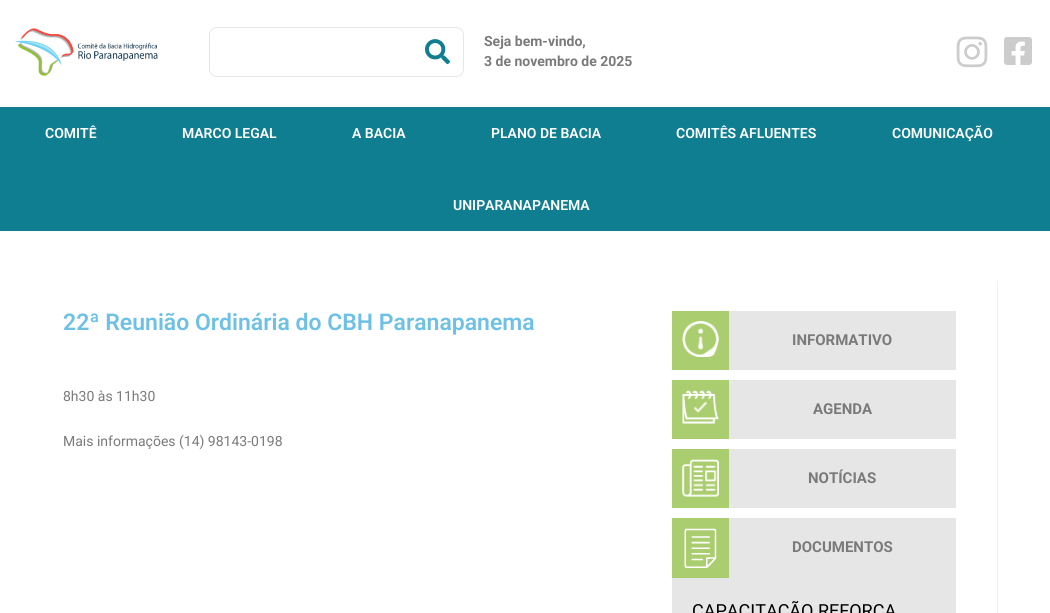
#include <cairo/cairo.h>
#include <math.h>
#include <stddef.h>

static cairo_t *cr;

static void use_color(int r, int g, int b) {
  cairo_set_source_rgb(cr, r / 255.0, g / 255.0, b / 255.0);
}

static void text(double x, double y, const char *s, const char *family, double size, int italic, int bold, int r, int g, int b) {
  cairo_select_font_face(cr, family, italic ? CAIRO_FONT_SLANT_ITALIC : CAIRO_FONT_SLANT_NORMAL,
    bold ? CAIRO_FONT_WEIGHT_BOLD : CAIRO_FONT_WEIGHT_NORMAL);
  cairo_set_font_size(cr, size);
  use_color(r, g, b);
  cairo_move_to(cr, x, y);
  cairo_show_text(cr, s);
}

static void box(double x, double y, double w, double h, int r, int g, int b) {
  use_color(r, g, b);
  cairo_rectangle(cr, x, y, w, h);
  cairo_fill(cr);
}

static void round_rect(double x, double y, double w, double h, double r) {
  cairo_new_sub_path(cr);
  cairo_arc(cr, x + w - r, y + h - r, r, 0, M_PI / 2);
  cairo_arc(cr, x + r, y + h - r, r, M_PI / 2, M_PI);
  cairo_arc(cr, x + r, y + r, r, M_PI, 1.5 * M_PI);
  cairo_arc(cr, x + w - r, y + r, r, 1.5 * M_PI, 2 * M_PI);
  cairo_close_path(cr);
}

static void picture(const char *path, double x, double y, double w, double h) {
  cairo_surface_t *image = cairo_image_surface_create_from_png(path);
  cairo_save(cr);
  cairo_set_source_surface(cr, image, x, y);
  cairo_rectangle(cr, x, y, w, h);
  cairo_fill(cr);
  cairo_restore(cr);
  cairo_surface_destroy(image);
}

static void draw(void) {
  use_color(255, 255, 255);
  cairo_paint(cr);
  picture("img_01.png", 14, 28, 144, 48);
  round_rect(209.5, 27.5, 254, 49, 7.5);
  use_color(230, 230, 230);
  cairo_set_line_width(cr, 1);
  cairo_stroke(cr);
  picture("img_02.png", 425, 39, 25, 26);
  picture("img_03.png", 956, 36, 32, 32);
  picture("img_04.png", 1004, 37, 28, 28);
  box(0, 107, 1050, 124, 15, 126, 144);
  box(997, 281, 1, 332, 241, 241, 241);
  box(672, 311, 57, 59, 170, 205, 111);
  picture("img_05.png", 682, 321, 37, 36);
  box(729, 311, 227, 59, 230, 230, 230);
  box(672, 380, 57, 59, 170, 205, 111);
  picture("img_06.png", 682, 390, 37, 34);
  box(729, 380, 227, 59, 230, 230, 230);
  box(672, 449, 57, 59, 170, 205, 111);
  picture("img_07.png", 682, 459, 37, 38);
  box(729, 449, 227, 59, 230, 230, 230);
  box(672, 518, 57, 60, 170, 205, 111);
  picture("img_08.png", 684, 528, 33, 40);
  box(729, 518, 227, 60, 230, 230, 230);
  box(672, 578, 284, 35, 230, 230, 230);
  text(484, 46, "Seja bem-vindo,", "Roboto", 14, 0, 1, 122, 122, 122);
  text(484, 66, "3 de novembro de 2025", "Roboto", 14, 0, 1, 122, 122, 122);
  text(45, 138, "COMITÊ", "Roboto SemiBold", 14, 0, 0, 255, 255, 255);
  text(182, 138, "MARCO LEGAL", "Roboto SemiBold", 14, 0, 0, 255, 255, 255);
  text(352, 138, "A BACIA", "Roboto SemiBold", 14, 0, 0, 255, 255, 255);
  text(491, 138, "PLANO DE BACIA", "Roboto SemiBold", 14, 0, 0, 255, 255, 255);
  text(676, 138, "COMITÊS AFLUENTES", "Roboto SemiBold", 14, 0, 0, 255, 255, 255);
  text(892, 138, "COMUNICAÇÃO", "Roboto SemiBold", 14, 0, 0, 255, 255, 255);
  text(453, 210, "UNIPARANAPANEMA", "Roboto SemiBold", 14, 0, 0, 255, 255, 255);
  text(63, 330, "22ª Reunião Ordinária do CBH Paranapanema", "Roboto SemiBold", 23, 0, 0, 110, 193, 228);
  text(63, 401, "8h30 às 11h30", "Roboto", 14, 0, 0, 122, 122, 122);
  text(63, 446, "Mais informações (14) 98143-0198", "Roboto", 14, 0, 0, 122, 122, 122);
  text(792, 345, "INFORMATIVO", "Roboto", 15, 0, 1, 122, 122, 122);
  text(813, 414, "AGENDA", "Roboto", 15, 0, 1, 122, 122, 122);
  text(808, 483, "NOTÍCIAS", "Roboto", 15, 0, 1, 122, 122, 122);
  text(792, 552, "DOCUMENTOS", "Roboto", 15, 0, 1, 122, 122, 122);
  text(692, 617, "CAPACITAÇÃO REFORÇA", "Roboto", 18, 0, 0, 0, 0, 0);
}

int main(void) {
  cairo_surface_t *surface = cairo_image_surface_create(CAIRO_FORMAT_RGB24, 1050, 613);
  cr = cairo_create(surface);
  cairo_font_options_t *options = cairo_font_options_create();
  cairo_font_options_set_hint_metrics(options, CAIRO_HINT_METRICS_OFF);
  cairo_font_options_set_hint_style(options, CAIRO_HINT_STYLE_NONE);
  cairo_set_font_options(cr, options);
  cairo_set_miter_limit(cr, 4);
  draw();
  cairo_surface_write_to_png(surface, "out.png");
  cairo_font_options_destroy(options);
  cairo_destroy(cr);
  cairo_surface_destroy(surface);
  return 0;
}
